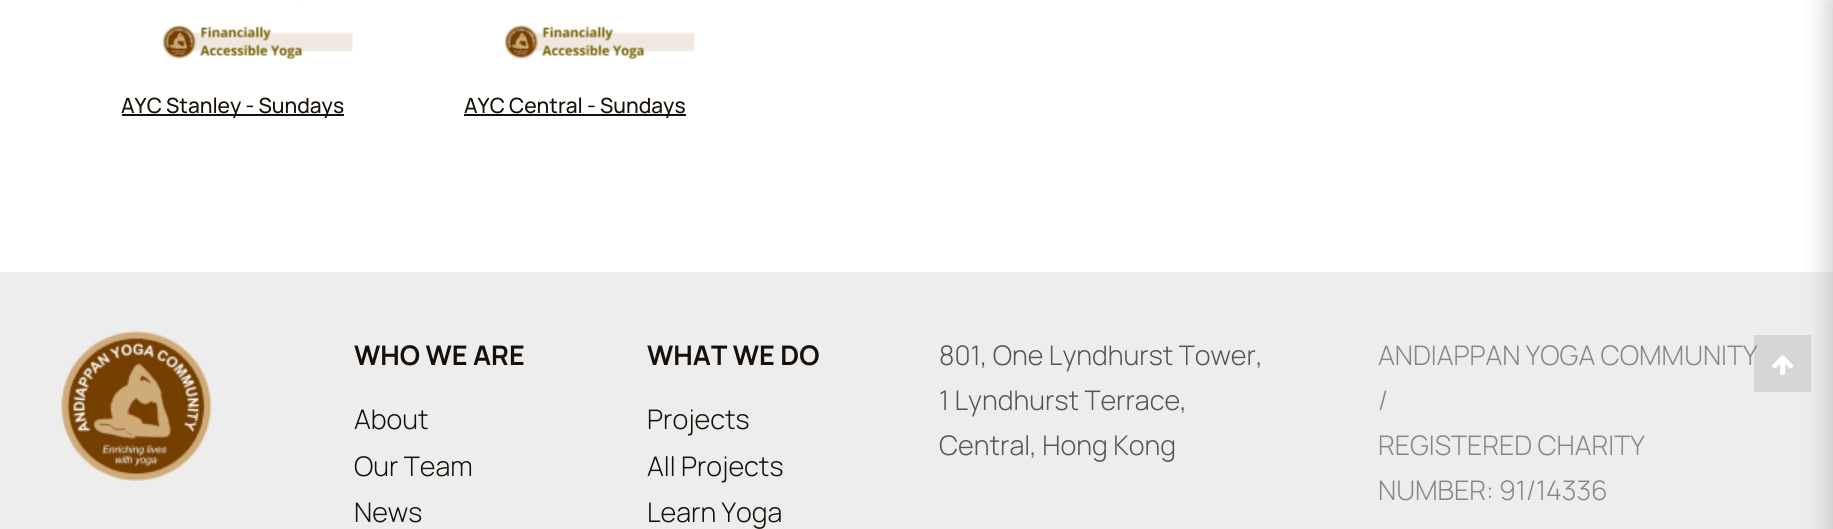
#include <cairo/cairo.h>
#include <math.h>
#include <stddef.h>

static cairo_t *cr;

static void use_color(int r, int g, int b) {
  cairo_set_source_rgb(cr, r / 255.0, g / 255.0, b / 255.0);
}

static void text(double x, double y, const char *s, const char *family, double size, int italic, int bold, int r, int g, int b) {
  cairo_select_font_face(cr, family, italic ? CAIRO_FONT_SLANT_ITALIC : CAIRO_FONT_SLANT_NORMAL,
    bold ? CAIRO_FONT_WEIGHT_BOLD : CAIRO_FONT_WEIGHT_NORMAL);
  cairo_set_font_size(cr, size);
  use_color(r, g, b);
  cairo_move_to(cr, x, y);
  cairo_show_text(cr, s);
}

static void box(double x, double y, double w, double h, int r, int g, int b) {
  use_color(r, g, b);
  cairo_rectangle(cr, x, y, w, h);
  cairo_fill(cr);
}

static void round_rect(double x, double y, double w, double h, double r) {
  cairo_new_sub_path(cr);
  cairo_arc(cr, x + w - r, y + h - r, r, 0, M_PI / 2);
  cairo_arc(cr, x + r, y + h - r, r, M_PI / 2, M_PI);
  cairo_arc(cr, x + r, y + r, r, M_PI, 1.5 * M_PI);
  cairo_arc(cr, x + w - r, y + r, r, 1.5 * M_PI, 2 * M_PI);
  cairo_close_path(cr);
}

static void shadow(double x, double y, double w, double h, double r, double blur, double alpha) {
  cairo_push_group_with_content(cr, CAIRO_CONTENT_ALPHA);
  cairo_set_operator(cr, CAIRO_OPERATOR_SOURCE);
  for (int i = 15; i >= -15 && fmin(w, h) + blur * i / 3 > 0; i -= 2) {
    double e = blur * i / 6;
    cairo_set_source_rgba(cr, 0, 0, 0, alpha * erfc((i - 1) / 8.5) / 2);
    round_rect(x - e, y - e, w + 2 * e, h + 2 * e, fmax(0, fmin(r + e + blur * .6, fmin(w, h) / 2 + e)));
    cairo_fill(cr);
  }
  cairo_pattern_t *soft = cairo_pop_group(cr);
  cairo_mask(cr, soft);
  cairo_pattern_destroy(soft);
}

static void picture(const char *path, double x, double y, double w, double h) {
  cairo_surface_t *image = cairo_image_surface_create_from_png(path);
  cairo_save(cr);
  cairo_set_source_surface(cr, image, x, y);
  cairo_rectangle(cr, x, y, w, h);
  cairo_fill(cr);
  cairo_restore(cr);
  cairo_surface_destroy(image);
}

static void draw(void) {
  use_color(255, 255, 255);
  cairo_paint(cr);
  picture("img_01.png", 162, 0, 191, 60);
  box(122, 114, 222, 2, 23, 16, 9);
  picture("img_02.png", 504, 25, 191, 35);
  box(464, 114, 222, 2, 23, 16, 9);
  box(0, 272, 1833, 257, 237, 237, 237);
  cairo_set_source_rgba(cr, 0, 0, 0, 0.1);
  cairo_rectangle(cr, 1754, 335, 57, 57);
  cairo_fill(cr);
  picture("img_04.png", 1772, 355, 21, 20);
  use_color(195, 195, 195);
  shadow(1830, -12, 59, 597, 15, 13.5, 1);
  picture("img_03.png", 61, 331, 151, 150);
  text(121, 113, "AYC Stanley - Sundays", "Manrope Medium", 21, 0, 0, 23, 16, 9);
  text(464, 113, "AYC Central - Sundays", "Manrope Medium", 21, 0, 0, 23, 16, 9);
  text(354, 365, "WHO WE ARE", "Manrope", 27, 0, 1, 23, 16, 9);
  text(354, 429, "About", "Manrope Light", 27, 0, 0, 23, 16, 9);
  text(354, 476, "Our Team", "Manrope Light", 27, 0, 0, 23, 16, 9);
  text(354, 522, "News", "Manrope Light", 27, 0, 0, 23, 16, 9);
  text(647, 365, "WHAT WE DO", "Manrope", 27, 0, 1, 23, 16, 9);
  text(647, 429, "Projects", "Manrope Light", 27, 0, 0, 23, 16, 9);
  text(647, 476, "All Projects", "Manrope Light", 27, 0, 0, 23, 16, 9);
  text(647, 522, "Learn Yoga", "Manrope Light", 27, 0, 0, 23, 16, 9);
  text(939, 365, "801, One Lyndhurst Tower,", "Manrope Light", 27, 0, 0, 85, 85, 85);
  text(939, 410, "1 Lyndhurst Terrace,", "Manrope Light", 27, 0, 0, 85, 85, 85);
  text(939, 455, "Central, Hong Kong", "Manrope Light", 27, 0, 0, 85, 85, 85);
  text(1378, 365, "ANDIAPPAN YOGA COMMUNITY", "Manrope Light", 27, 0, 0, 135, 135, 135);
  text(1378, 410, "/", "Manrope Light", 27, 0, 0, 135, 135, 135);
  text(1378, 455, "REGISTERED CHARITY", "Manrope Light", 27, 0, 0, 135, 135, 135);
  text(1378, 500, "NUMBER: 91/14336", "Manrope Light", 27, 0, 0, 135, 135, 135);
}

int main(void) {
  cairo_surface_t *surface = cairo_image_surface_create(CAIRO_FORMAT_RGB24, 1833, 529);
  cr = cairo_create(surface);
  cairo_font_options_t *options = cairo_font_options_create();
  cairo_font_options_set_hint_metrics(options, CAIRO_HINT_METRICS_OFF);
  cairo_font_options_set_hint_style(options, CAIRO_HINT_STYLE_NONE);
  cairo_set_font_options(cr, options);
  cairo_set_miter_limit(cr, 4);
  draw();
  cairo_surface_write_to_png(surface, "out.png");
  cairo_font_options_destroy(options);
  cairo_destroy(cr);
  cairo_surface_destroy(surface);
  return 0;
}
